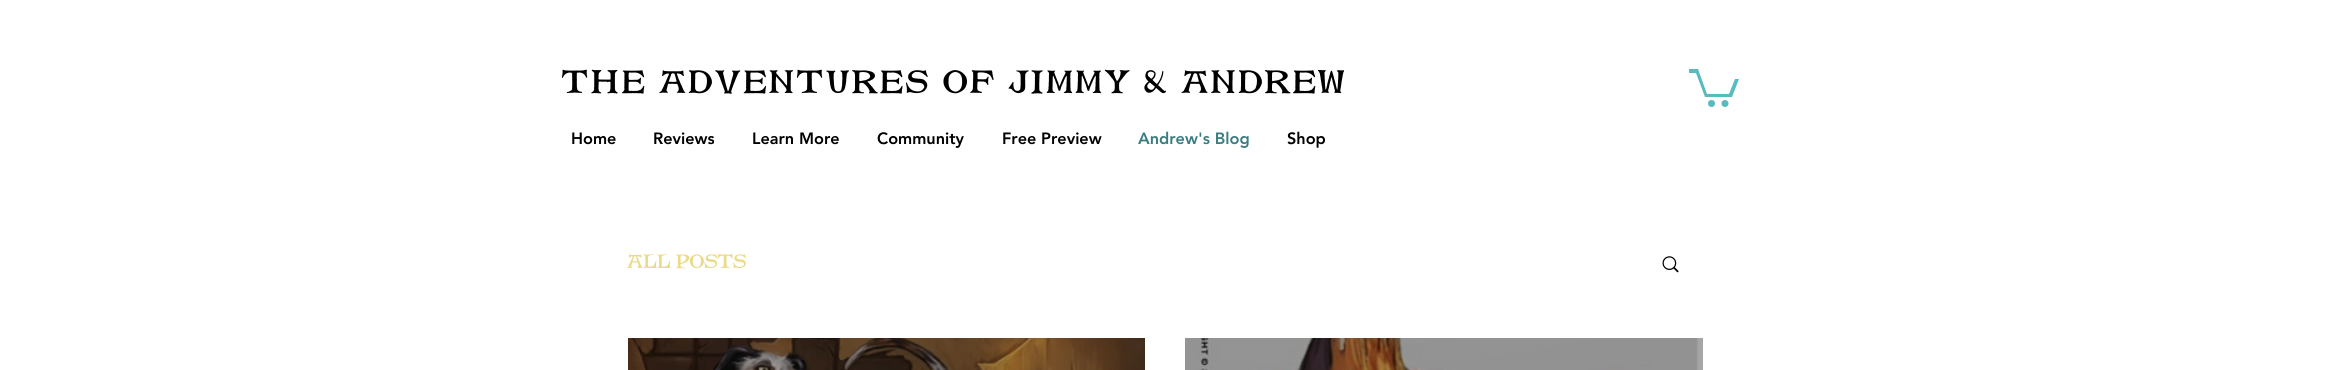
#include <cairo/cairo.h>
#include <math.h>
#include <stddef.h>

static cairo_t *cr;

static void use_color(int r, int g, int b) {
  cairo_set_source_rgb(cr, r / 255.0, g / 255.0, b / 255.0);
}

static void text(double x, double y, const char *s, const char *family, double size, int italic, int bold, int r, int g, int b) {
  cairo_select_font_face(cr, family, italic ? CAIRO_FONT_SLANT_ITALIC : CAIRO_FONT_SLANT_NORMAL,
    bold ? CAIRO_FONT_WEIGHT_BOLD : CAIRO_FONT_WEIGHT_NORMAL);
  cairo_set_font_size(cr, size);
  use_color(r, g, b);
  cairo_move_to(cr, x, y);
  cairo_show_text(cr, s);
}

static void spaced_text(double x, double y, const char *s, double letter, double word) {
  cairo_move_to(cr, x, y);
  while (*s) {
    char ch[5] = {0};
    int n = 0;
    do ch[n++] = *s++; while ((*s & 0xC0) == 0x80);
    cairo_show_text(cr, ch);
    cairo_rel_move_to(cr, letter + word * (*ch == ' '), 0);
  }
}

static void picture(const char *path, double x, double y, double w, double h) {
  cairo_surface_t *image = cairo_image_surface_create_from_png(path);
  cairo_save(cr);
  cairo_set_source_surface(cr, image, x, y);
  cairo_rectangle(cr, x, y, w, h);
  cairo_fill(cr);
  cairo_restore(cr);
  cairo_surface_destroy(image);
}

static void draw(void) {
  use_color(255, 255, 255);
  cairo_paint(cr);
  use_color(87, 187, 191);
  cairo_new_path(cr);
  cairo_move_to(cr, 1739, 79);
  cairo_line_to(cr, 1732, 97);
  cairo_line_to(cr, 1705, 97);
  cairo_line_to(cr, 1696, 73);
  cairo_line_to(cr, 1689, 73);
  cairo_line_to(cr, 1689, 69);
  cairo_line_to(cr, 1698, 69);
  cairo_line_to(cr, 1707, 94);
  cairo_line_to(cr, 1729, 94);
  cairo_line_to(cr, 1735, 79);
  cairo_fill(cr);
  cairo_arc(cr, 1725, 103.5, 3.5, 0, 2 * M_PI);
  cairo_fill(cr);
  cairo_arc(cr, 1711.5, 103.5, 3.5, 0, 2 * M_PI);
  cairo_fill(cr);
  picture("img_01.png", 1662, 256, 17, 17);
  picture("img_02.png", 628, 338, 517, 32);
  picture("img_03.png", 1185, 338, 518, 32);
  cairo_select_font_face(cr, "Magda", CAIRO_FONT_SLANT_NORMAL, CAIRO_FONT_WEIGHT_NORMAL);
  cairo_set_font_size(cr, 31.25);
  use_color(0, 0, 0);
  spaced_text(562, 93, "The Adventures of Jimmy & Andrew", 3.1, 0);
  text(571, 144, "Home", "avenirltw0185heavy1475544 Black", 16.25, 0, 0, 0, 0, 0);
  text(653, 144, "Reviews", "avenirltw0185heavy1475544 Black", 16.25, 0, 0, 0, 0, 0);
  text(752, 144, "Learn More", "avenirltw0185heavy1475544 Black", 16.25, 0, 0, 0, 0, 0);
  text(877, 144, "Community", "avenirltw0185heavy1475544 Black", 16.25, 0, 0, 0, 0, 0);
  text(1002, 144, "Free Preview", "avenirltw0185heavy1475544 Black", 16.25, 0, 0, 0, 0, 0);
  text(1138, 144, "Andrew's Blog", "avenirltw0185heavy1475544 Black", 16.25, 0, 0, 58, 124, 128);
  text(1287, 144, "Shop", "avenirltw0185heavy1475544 Black", 16.25, 0, 0, 0, 0, 0);
  text(627, 268, "All Posts", "Magda", 18.75, 0, 0, 233, 219, 137);
}

int main(void) {
  cairo_surface_t *surface = cairo_image_surface_create(CAIRO_FORMAT_RGB24, 2328, 370);
  cr = cairo_create(surface);
  cairo_font_options_t *options = cairo_font_options_create();
  cairo_font_options_set_hint_metrics(options, CAIRO_HINT_METRICS_OFF);
  cairo_font_options_set_hint_style(options, CAIRO_HINT_STYLE_NONE);
  cairo_set_font_options(cr, options);
  cairo_set_miter_limit(cr, 4);
  draw();
  cairo_surface_write_to_png(surface, "out.png");
  cairo_font_options_destroy(options);
  cairo_destroy(cr);
  cairo_surface_destroy(surface);
  return 0;
}
